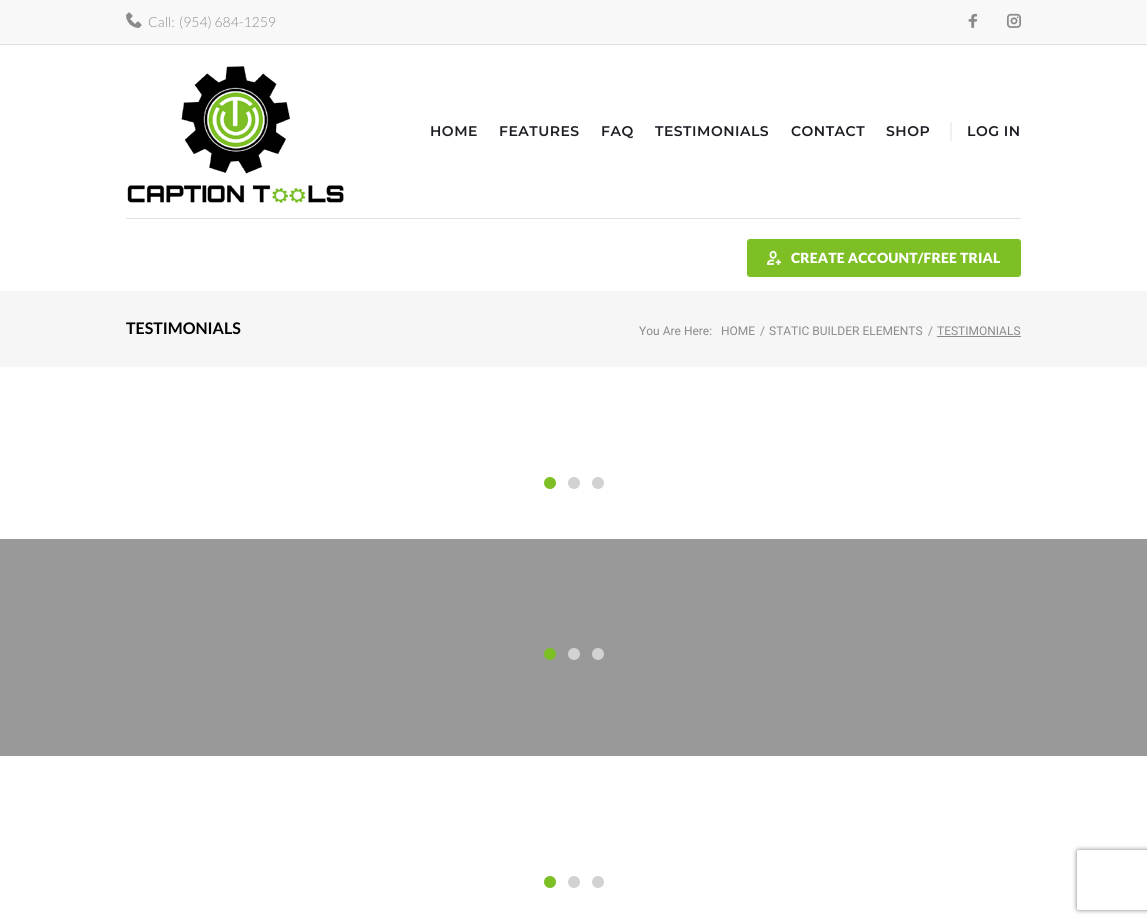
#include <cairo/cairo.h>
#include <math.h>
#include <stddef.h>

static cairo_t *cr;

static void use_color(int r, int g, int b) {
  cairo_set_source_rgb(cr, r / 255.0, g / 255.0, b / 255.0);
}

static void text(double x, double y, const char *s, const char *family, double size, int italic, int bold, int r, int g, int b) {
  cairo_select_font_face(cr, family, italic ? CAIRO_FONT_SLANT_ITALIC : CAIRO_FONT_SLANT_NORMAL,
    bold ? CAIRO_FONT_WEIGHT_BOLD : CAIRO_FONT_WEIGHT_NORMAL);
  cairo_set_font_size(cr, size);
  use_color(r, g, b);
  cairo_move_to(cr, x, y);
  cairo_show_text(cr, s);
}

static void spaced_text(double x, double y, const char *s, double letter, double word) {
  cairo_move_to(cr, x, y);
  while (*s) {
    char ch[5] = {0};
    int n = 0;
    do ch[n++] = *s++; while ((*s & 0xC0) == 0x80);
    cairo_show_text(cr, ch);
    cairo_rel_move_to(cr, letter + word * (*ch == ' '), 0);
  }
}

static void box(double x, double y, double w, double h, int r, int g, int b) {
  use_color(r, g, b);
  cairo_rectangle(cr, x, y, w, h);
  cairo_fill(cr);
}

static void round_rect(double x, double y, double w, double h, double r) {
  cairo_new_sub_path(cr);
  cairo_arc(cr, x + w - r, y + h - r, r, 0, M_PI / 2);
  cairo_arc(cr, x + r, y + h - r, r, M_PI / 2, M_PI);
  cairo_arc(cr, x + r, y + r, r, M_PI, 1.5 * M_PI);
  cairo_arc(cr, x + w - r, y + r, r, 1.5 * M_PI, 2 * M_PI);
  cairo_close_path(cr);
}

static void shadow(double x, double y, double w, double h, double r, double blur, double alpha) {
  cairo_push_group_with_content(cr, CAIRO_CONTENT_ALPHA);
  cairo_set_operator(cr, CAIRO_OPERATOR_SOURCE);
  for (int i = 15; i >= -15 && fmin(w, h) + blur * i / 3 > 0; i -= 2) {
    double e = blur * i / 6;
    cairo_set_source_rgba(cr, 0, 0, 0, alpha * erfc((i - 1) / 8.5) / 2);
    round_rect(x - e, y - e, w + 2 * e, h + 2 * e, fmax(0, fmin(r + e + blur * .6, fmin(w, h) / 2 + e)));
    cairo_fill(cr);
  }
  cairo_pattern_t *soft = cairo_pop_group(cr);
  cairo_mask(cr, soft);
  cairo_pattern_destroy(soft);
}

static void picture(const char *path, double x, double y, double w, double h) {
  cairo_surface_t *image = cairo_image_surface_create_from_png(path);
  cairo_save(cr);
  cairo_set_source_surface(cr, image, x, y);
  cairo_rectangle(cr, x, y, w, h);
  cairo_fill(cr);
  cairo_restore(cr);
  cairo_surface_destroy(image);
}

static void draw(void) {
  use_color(255, 255, 255);
  cairo_paint(cr);
  box(0, 0, 1147, 44, 248, 248, 248);
  box(0, 44, 1147, 1, 225, 225, 225);
  picture("img_01.png", 126, 12, 16, 16);
  picture("img_02.png", 968, 13, 10, 15);
  picture("img_03.png", 1007, 13, 14, 15);
  picture("img_04.png", 127, 66, 217, 140);
  box(950, 122, 2, 19, 240, 240, 240);
  box(126, 218, 895, 1, 225, 225, 225);
  use_color(125, 191, 37);
  round_rect(747, 239, 274, 38, 3);
  cairo_fill(cr);
  picture("img_05.png", 767, 250, 14, 15);
  box(0, 291, 1147, 76, 246, 246, 246);
  box(937, 336, 84, 1, 139, 139, 139);
  use_color(125, 191, 37);
  cairo_arc(cr, 550, 483, 6, 0, 2 * M_PI);
  cairo_fill(cr);
  use_color(210, 210, 211);
  cairo_arc(cr, 574, 483, 6, 0, 2 * M_PI);
  cairo_fill(cr);
  cairo_arc(cr, 598, 483, 6, 0, 2 * M_PI);
  cairo_fill(cr);
  box(0, 539, 1147, 217, 153, 153, 153);
  use_color(125, 191, 37);
  cairo_arc(cr, 550, 654, 6, 0, 2 * M_PI);
  cairo_fill(cr);
  use_color(210, 210, 211);
  cairo_arc(cr, 574, 654, 6, 0, 2 * M_PI);
  cairo_fill(cr);
  cairo_arc(cr, 598, 654, 6, 0, 2 * M_PI);
  cairo_fill(cr);
  use_color(125, 191, 37);
  cairo_arc(cr, 550, 882, 6, 0, 2 * M_PI);
  cairo_fill(cr);
  use_color(210, 210, 211);
  cairo_arc(cr, 574, 882, 6, 0, 2 * M_PI);
  cairo_fill(cr);
  cairo_arc(cr, 598, 882, 6, 0, 2 * M_PI);
  cairo_fill(cr);
  cairo_save(cr);
  cairo_set_fill_rule(cr, CAIRO_FILL_RULE_EVEN_ODD);
  cairo_new_path(cr);
  cairo_move_to(cr, 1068, 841);
  cairo_line_to(cr, 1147, 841);
  cairo_line_to(cr, 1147, 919);
  cairo_line_to(cr, 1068, 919);
  cairo_close_path(cr);
  cairo_move_to(cr, 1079, 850);
  cairo_line_to(cr, 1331, 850);
  cairo_curve_to(cr, 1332, 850, 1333, 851, 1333, 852);
  cairo_line_to(cr, 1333, 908);
  cairo_curve_to(cr, 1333, 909, 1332, 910, 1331, 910);
  cairo_line_to(cr, 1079, 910);
  cairo_curve_to(cr, 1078, 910, 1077, 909, 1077, 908);
  cairo_line_to(cr, 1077, 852);
  cairo_curve_to(cr, 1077, 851, 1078, 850, 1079, 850);
  cairo_close_path(cr);
  cairo_clip(cr);
  use_color(128, 128, 128);
  shadow(1077, 850, 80, 60, 2, 2.5, 1);
  cairo_restore(cr);
  text(148, 27, "Call:", "Lato Light", 14, 0, 0, 139, 139, 139);
  text(179, 27, "(954) 684-1259", "Lato Light", 14, 0, 0, 139, 139, 139);
  cairo_select_font_face(cr, "Montserrat Thin", CAIRO_FONT_SLANT_NORMAL, CAIRO_FONT_WEIGHT_NORMAL);
  use_color(30, 29, 36);
  spaced_text(430, 136, "HOME", 0.5, 0);
  spaced_text(499, 136, "FEATURES", 0.5, 0);
  spaced_text(601, 136, "FAQ", 0.5, 0);
  spaced_text(655, 136, "TESTIMONIALS", 0.5, 0);
  spaced_text(791, 136, "CONTACT", 0.5, 0);
  spaced_text(886, 136, "SHOP", 0.5, 0);
  spaced_text(967, 136, "LOG IN", 0.5, 0);
  cairo_select_font_face(cr, "Lato Black", CAIRO_FONT_SLANT_NORMAL, CAIRO_FONT_WEIGHT_NORMAL);
  use_color(255, 255, 255);
  spaced_text(791, 263, "CREATE ACCOUNT/FREE TRIAL", 0.15, 0);
  text(126, 334, "TESTIMONIALS", "Lato", 16, 0, 1, 0, 0, 0);
  text(639, 335, "You Are Here:", "Roboto", 12, 0, 0, 139, 139, 139);
  text(721, 335, "HOME", "Roboto", 12, 0, 0, 139, 139, 139);
  text(760, 335, "/", "Roboto", 12, 0, 0, 139, 139, 139);
  text(769, 335, "STATIC BUILDER ELEMENTS", "Roboto", 12, 0, 0, 139, 139, 139);
  text(928, 335, "/", "Roboto", 12, 0, 0, 139, 139, 139);
  text(937, 335, "TESTIMONIALS", "Roboto", 12, 0, 0, 139, 139, 139);
}

int main(void) {
  cairo_surface_t *surface = cairo_image_surface_create(CAIRO_FORMAT_RGB24, 1147, 924);
  cr = cairo_create(surface);
  cairo_font_options_t *options = cairo_font_options_create();
  cairo_font_options_set_hint_metrics(options, CAIRO_HINT_METRICS_OFF);
  cairo_font_options_set_hint_style(options, CAIRO_HINT_STYLE_NONE);
  cairo_set_font_options(cr, options);
  cairo_set_miter_limit(cr, 4);
  draw();
  cairo_surface_write_to_png(surface, "out.png");
  cairo_font_options_destroy(options);
  cairo_destroy(cr);
  cairo_surface_destroy(surface);
  return 0;
}
